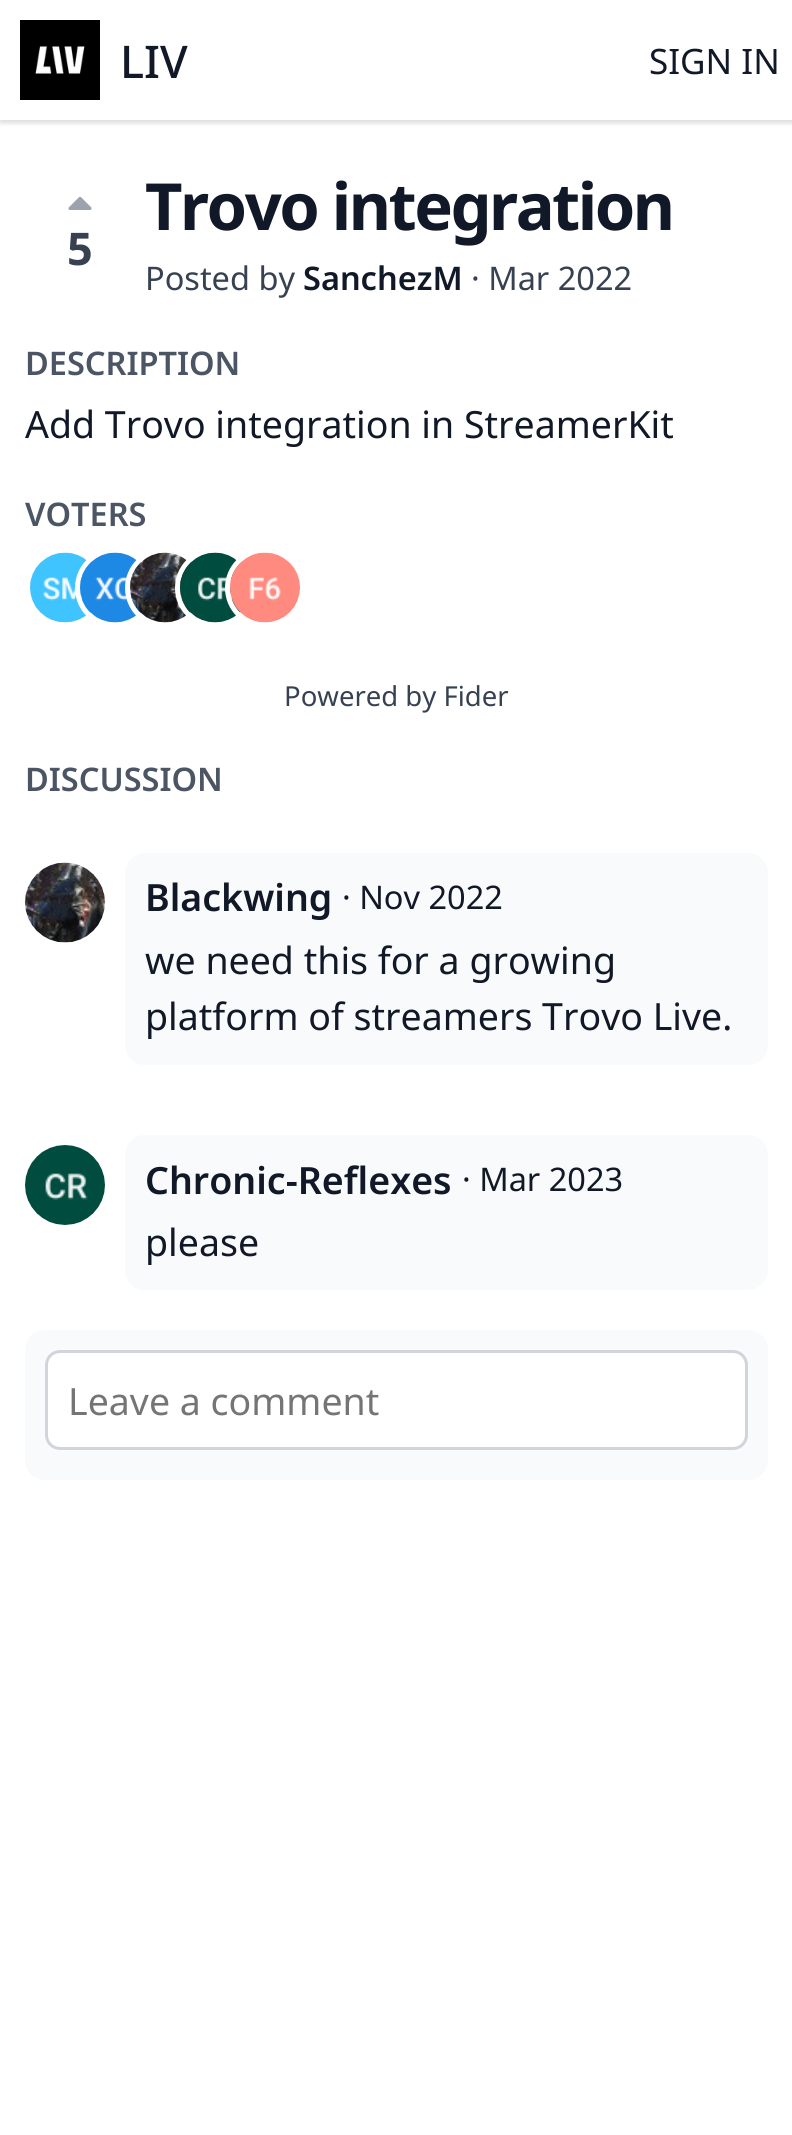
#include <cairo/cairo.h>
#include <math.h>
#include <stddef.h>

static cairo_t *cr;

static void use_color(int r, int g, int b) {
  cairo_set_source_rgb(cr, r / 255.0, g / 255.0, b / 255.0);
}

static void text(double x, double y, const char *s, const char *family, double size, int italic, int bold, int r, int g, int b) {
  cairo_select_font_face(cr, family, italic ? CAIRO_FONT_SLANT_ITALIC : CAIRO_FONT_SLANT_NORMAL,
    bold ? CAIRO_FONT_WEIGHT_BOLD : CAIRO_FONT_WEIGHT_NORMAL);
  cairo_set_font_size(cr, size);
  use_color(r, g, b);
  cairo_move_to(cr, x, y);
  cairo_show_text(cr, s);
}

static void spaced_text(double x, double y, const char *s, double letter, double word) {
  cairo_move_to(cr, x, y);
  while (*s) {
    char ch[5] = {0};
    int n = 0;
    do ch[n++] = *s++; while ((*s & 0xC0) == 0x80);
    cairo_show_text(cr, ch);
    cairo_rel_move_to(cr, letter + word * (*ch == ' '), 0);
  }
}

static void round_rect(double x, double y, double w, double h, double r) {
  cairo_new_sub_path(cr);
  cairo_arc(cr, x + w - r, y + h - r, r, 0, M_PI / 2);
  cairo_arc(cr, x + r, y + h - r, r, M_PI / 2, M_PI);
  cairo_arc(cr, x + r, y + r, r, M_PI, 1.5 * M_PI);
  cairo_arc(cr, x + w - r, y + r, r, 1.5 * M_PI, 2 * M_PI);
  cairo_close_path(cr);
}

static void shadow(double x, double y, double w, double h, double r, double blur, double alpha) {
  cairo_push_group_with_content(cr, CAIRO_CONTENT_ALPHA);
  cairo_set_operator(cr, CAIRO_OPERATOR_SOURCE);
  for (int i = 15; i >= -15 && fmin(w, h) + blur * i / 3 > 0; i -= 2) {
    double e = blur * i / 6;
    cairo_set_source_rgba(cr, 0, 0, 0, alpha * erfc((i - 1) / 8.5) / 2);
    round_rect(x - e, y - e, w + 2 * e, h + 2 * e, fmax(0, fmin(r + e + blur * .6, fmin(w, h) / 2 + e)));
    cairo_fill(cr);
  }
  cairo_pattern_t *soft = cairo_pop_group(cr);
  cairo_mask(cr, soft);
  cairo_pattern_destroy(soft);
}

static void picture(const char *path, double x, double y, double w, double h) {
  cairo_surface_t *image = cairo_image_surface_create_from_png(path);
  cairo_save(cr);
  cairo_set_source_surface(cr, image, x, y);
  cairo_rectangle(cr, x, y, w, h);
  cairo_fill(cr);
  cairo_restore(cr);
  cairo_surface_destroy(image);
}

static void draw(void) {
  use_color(255, 255, 255);
  cairo_paint(cr);
  cairo_save(cr);
  cairo_rectangle(cr, 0, 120, 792, 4);
  cairo_clip(cr);
  use_color(0, 0, 0);
  shadow(0, 3, 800, 120, 0, 2.5, 0.06);
  cairo_restore(cr);
  cairo_save(cr);
  cairo_rectangle(cr, 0, 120, 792, 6);
  cairo_clip(cr);
  use_color(0, 0, 0);
  shadow(0, 3, 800, 120, 0, 4, 0.1);
  cairo_restore(cr);
  picture("img_01.png", 20, 20, 80, 80);
  picture("img_02.png", 68, 196, 24, 14);
  picture("img_03.png", 30, 552, 60, 71);
  cairo_arc(cr, 115, 588, 37.5, 0, 2 * M_PI);
  use_color(255, 255, 255);
  cairo_set_line_width(cr, 5);
  cairo_stroke(cr);
  picture("img_04.png", 80, 552, 60, 71);
  cairo_arc(cr, 165, 588, 37.5, 0, 2 * M_PI);
  cairo_stroke(cr);
  picture("img_05.png", 130, 552, 60, 71);
  cairo_arc(cr, 215, 588, 37.5, 0, 2 * M_PI);
  cairo_stroke(cr);
  picture("img_06.png", 180, 552, 60, 71);
  cairo_arc(cr, 265, 588, 37.5, 0, 2 * M_PI);
  cairo_stroke(cr);
  picture("img_07.png", 230, 552, 70, 71);
  picture("img_08.png", 25, 862, 80, 81);
  use_color(249, 250, 251);
  round_rect(125, 853, 643, 212, 20);
  cairo_fill(cr);
  picture("img_09.png", 25, 1145, 80, 80);
  round_rect(125, 1135, 643, 155, 20);
  cairo_fill(cr);
  round_rect(25, 1330, 743, 150, 20);
  cairo_fill(cr);
  use_color(255, 255, 255);
  round_rect(46.5, 1351.5, 700, 97, 13.5);
  cairo_fill_preserve(cr);
  use_color(209, 213, 219);
  cairo_set_line_width(cr, 3);
  cairo_stroke(cr);
  text(120, 78, "LIV", "Noto Sans Medium", 45, 0, 0, 17, 24, 39);
  text(649, 74, "SIGN IN", "Noto Sans", 35, 0, 0, 17, 24, 39);
  text(67, 265, "5", "Noto Sans", 45, 0, 1, 55, 65, 81);
  cairo_set_font_size(cr, 65);
  use_color(17, 24, 39);
  spaced_text(145, 230, "Trovo integration", -2.5, 0);
  text(145, 290, "Posted by", "Noto Sans", 32.5, 0, 0, 55, 65, 81);
  text(303, 290, "SanchezM", "Noto Sans SemiBold", 32.5, 0, 0, 17, 24, 39);
  text(471, 290, "· Mar 2022", "Noto Sans", 32.5, 0, 0, 55, 65, 81);
  text(25, 375, "DESCRIPTION", "Noto Sans SemiBold", 32.5, 0, 0, 75, 85, 99);
  text(25, 438, "Add Trovo integration in StreamerKit", "Noto Sans", 37.5, 0, 0, 17, 24, 39);
  text(25, 526, "VOTERS", "Noto Sans SemiBold", 32.5, 0, 0, 75, 85, 99);
  text(284, 706, "Powered by Fider", "Noto Sans", 27.5, 0, 0, 55, 65, 81);
  text(25, 791, "DISCUSSION", "Noto Sans SemiBold", 32.5, 0, 0, 75, 85, 99);
  text(145, 911, "Blackwing", "Noto Sans SemiBold", 37.5, 0, 0, 17, 24, 39);
  text(342, 909, "· Nov 2022", "Noto Sans", 32.5, 0, 0, 17, 24, 39);
  text(145, 974, "we need this for a growing", "Noto Sans", 37.5, 0, 0, 17, 24, 39);
  text(145, 1030, "platform of streamers Trovo Live.", "Noto Sans", 37.5, 0, 0, 17, 24, 39);
  text(145, 1194, "Chronic-Reflexes", "Noto Sans SemiBold", 37.5, 0, 0, 17, 24, 39);
  text(462, 1191, "· Mar 2023", "Noto Sans", 32.5, 0, 0, 17, 24, 39);
  text(145, 1256, "please", "Noto Sans", 37.5, 0, 0, 17, 24, 39);
  text(68, 1415, "Leave a comment", "Noto Sans", 37.5, 0, 0, 117, 117, 117);
}

int main(void) {
  cairo_surface_t *surface = cairo_image_surface_create(CAIRO_FORMAT_RGB24, 792, 2135);
  cr = cairo_create(surface);
  cairo_font_options_t *options = cairo_font_options_create();
  cairo_font_options_set_hint_metrics(options, CAIRO_HINT_METRICS_OFF);
  cairo_font_options_set_hint_style(options, CAIRO_HINT_STYLE_NONE);
  cairo_set_font_options(cr, options);
  cairo_set_miter_limit(cr, 4);
  draw();
  cairo_surface_write_to_png(surface, "out.png");
  cairo_font_options_destroy(options);
  cairo_destroy(cr);
  cairo_surface_destroy(surface);
  return 0;
}
